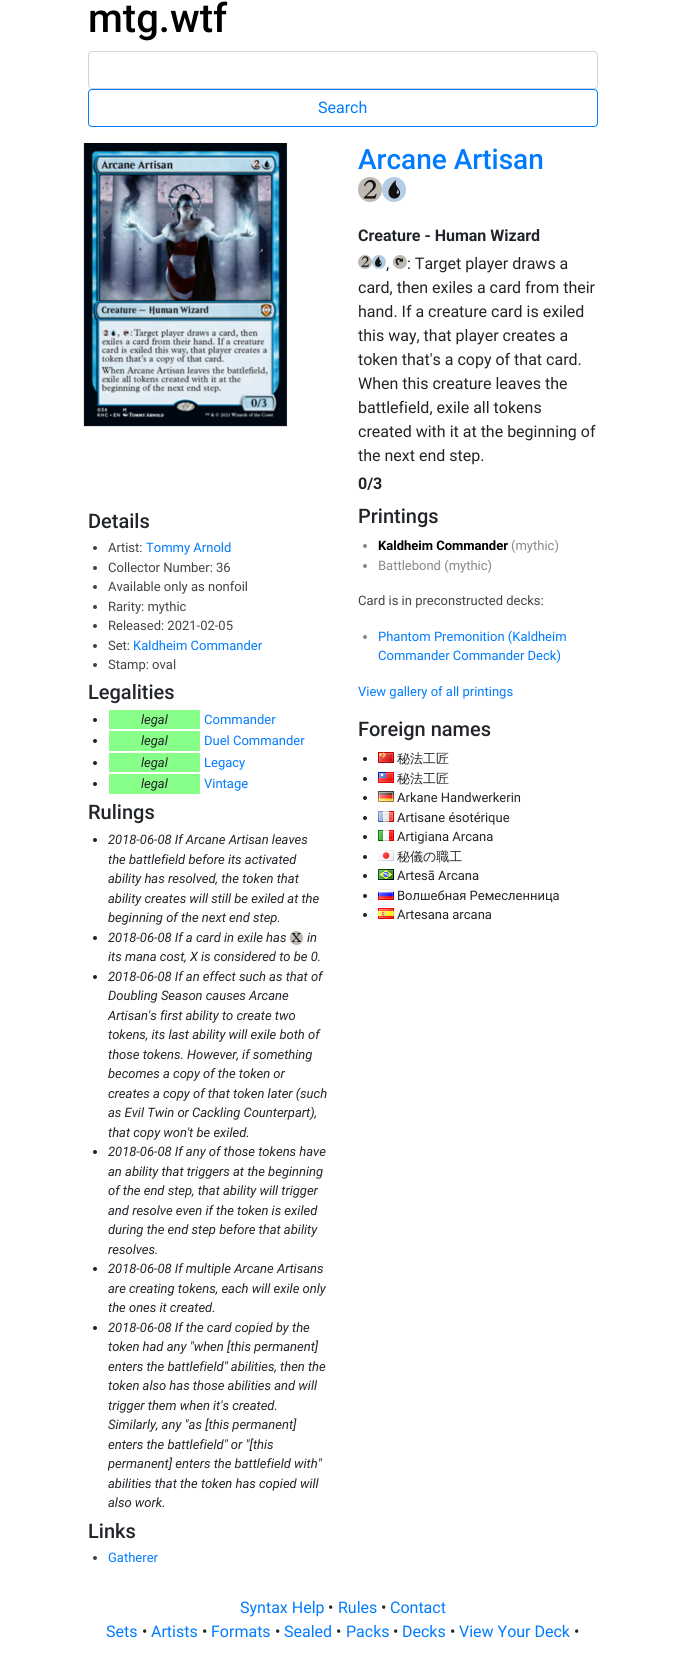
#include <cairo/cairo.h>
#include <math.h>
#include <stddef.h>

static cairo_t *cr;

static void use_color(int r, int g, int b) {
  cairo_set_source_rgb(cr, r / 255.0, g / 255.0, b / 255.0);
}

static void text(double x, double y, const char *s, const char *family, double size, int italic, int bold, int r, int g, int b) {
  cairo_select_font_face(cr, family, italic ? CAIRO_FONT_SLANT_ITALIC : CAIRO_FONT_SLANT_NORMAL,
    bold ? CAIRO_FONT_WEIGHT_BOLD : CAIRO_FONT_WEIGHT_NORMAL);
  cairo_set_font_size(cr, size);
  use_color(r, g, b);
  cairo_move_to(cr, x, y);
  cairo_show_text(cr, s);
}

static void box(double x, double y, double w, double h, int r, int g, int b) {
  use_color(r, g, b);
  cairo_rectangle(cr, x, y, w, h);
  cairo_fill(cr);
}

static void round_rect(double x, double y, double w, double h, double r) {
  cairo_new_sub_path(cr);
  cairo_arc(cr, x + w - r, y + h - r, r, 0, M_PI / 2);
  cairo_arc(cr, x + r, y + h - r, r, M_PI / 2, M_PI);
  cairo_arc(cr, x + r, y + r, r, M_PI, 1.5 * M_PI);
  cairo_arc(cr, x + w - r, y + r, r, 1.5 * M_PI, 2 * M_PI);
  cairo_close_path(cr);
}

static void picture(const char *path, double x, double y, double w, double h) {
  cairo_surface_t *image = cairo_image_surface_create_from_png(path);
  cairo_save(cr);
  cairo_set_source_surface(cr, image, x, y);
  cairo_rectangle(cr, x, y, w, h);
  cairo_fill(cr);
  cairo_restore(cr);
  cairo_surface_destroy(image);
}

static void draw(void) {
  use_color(255, 255, 255);
  cairo_paint(cr);
  round_rect(88.5, 51.5, 509, 37, 3.5);
  use_color(206, 212, 218);
  cairo_set_line_width(cr, 1);
  cairo_stroke(cr);
  round_rect(88.5, 89.5, 509, 37, 3.5);
  use_color(0, 123, 255);
  cairo_stroke(cr);
  picture("img_01.png", 83, 143, 205, 284);
  use_color(190, 185, 178);
  round_rect(358, 177, 24, 25, 12);
  cairo_fill(cr);
  picture("img_02.png", 363, 179, 14, 20);
  use_color(181, 205, 227);
  round_rect(382, 177, 24, 25, 12);
  cairo_fill(cr);
  picture("img_03.png", 388, 180, 13, 19);
  use_color(190, 185, 178);
  cairo_arc(cr, 365, 262, 7, 0, 2 * M_PI);
  cairo_fill(cr);
  picture("img_04.png", 361, 256, 8, 11);
  cairo_arc(cr, 400, 262, 7, 0, 2 * M_PI);
  cairo_fill(cr);
  picture("img_06.png", 395, 257, 8, 9);
  use_color(68, 68, 68);
  cairo_arc(cr, 95, 548, 2, 0, 2 * M_PI);
  cairo_fill(cr);
  cairo_arc(cr, 95, 568, 2, 0, 2 * M_PI);
  cairo_fill(cr);
  cairo_arc(cr, 95, 587, 2, 0, 2 * M_PI);
  cairo_fill(cr);
  cairo_arc(cr, 95, 607, 2, 0, 2 * M_PI);
  cairo_fill(cr);
  cairo_arc(cr, 95, 626, 2, 0, 2 * M_PI);
  cairo_fill(cr);
  cairo_arc(cr, 95, 646, 2, 0, 2 * M_PI);
  cairo_fill(cr);
  cairo_arc(cr, 95, 665, 2, 0, 2 * M_PI);
  cairo_fill(cr);
  use_color(33, 37, 41);
  cairo_arc(cr, 95, 720, 2, 0, 2 * M_PI);
  cairo_fill(cr);
  box(109, 710, 91, 19, 136, 255, 136);
  use_color(33, 37, 41);
  cairo_arc(cr, 95, 741, 2, 0, 2 * M_PI);
  cairo_fill(cr);
  box(109, 731, 91, 20, 136, 255, 136);
  use_color(33, 37, 41);
  cairo_arc(cr, 95, 763, 2, 0, 2 * M_PI);
  cairo_fill(cr);
  box(109, 753, 91, 19, 136, 255, 136);
  use_color(33, 37, 41);
  cairo_arc(cr, 95, 784, 2, 0, 2 * M_PI);
  cairo_fill(cr);
  box(109, 774, 91, 20, 136, 255, 136);
  use_color(33, 37, 41);
  cairo_arc(cr, 95, 840, 2, 0, 2 * M_PI);
  cairo_fill(cr);
  cairo_arc(cr, 95, 938, 2, 0, 2 * M_PI);
  cairo_fill(cr);
  use_color(190, 185, 178);
  round_rect(290, 931, 13, 14, 6.5);
  cairo_fill(cr);
  picture("img_07.png", 291, 933, 11, 9);
  use_color(33, 37, 41);
  cairo_arc(cr, 95, 977, 2, 0, 2 * M_PI);
  cairo_fill(cr);
  cairo_arc(cr, 95, 1152, 2, 0, 2 * M_PI);
  cairo_fill(cr);
  cairo_arc(cr, 95, 1269, 2, 0, 2 * M_PI);
  cairo_fill(cr);
  cairo_arc(cr, 95, 1328, 2, 0, 2 * M_PI);
  cairo_fill(cr);
  use_color(68, 68, 68);
  cairo_arc(cr, 95, 1558, 2, 0, 2 * M_PI);
  cairo_fill(cr);
  use_color(136, 136, 136);
  cairo_arc(cr, 365, 546, 2, 0, 2 * M_PI);
  cairo_fill(cr);
  cairo_arc(cr, 365, 566, 2, 0, 2 * M_PI);
  cairo_fill(cr);
  cairo_arc(cr, 365, 637, 2, 0, 2 * M_PI);
  cairo_fill(cr);
  use_color(33, 37, 41);
  cairo_arc(cr, 365, 759, 2, 0, 2 * M_PI);
  cairo_fill(cr);
  picture("img_08.png", 378, 752, 16, 11);
  cairo_arc(cr, 365, 779, 2, 0, 2 * M_PI);
  cairo_fill(cr);
  picture("img_09.png", 378, 772, 16, 11);
  cairo_arc(cr, 365, 798, 2, 0, 2 * M_PI);
  cairo_fill(cr);
  picture("img_10.png", 378, 791, 16, 11);
  cairo_arc(cr, 365, 818, 2, 0, 2 * M_PI);
  cairo_fill(cr);
  picture("img_11.png", 378, 811, 16, 11);
  cairo_arc(cr, 365, 837, 2, 0, 2 * M_PI);
  cairo_fill(cr);
  picture("img_12.png", 378, 830, 16, 11);
  cairo_arc(cr, 365, 857, 2, 0, 2 * M_PI);
  cairo_fill(cr);
  picture("img_13.png", 378, 850, 16, 11);
  cairo_arc(cr, 365, 876, 2, 0, 2 * M_PI);
  cairo_fill(cr);
  picture("img_14.png", 378, 869, 16, 11);
  cairo_arc(cr, 365, 896, 2, 0, 2 * M_PI);
  cairo_fill(cr);
  picture("img_15.png", 378, 889, 16, 11);
  cairo_arc(cr, 365, 915, 2, 0, 2 * M_PI);
  cairo_fill(cr);
  picture("img_16.png", 378, 908, 16, 11);
  text(88, 32, "mtg.wtf", "Roboto Medium", 40, 0, 0, 0, 0, 0);
  text(318, 113, "Search", "Roboto", 16, 0, 0, 0, 123, 255);
  text(358, 169, "Arcane Artisan", "Roboto Medium", 28, 0, 0, 0, 123, 255);
  text(358, 241, "Creature - Human Wizard", "Roboto", 16, 0, 1, 33, 37, 41);
  text(386, 269, ",", "Roboto", 16, 0, 0, 33, 37, 41);
  use_color(181, 205, 227);
  cairo_new_path(cr);
  cairo_arc(cr, 379, 262, 7, 0, 2 * M_PI);
  cairo_fill(cr);
  picture("img_05.png", 375, 256, 7, 11);
  text(407, 269, ": Target player draws a", "Roboto", 16, 0, 0, 33, 37, 41);
  text(358, 293, "card, then exiles a card from their", "Roboto", 16, 0, 0, 33, 37, 41);
  text(358, 317, "hand. If a creature card is exiled", "Roboto", 16, 0, 0, 33, 37, 41);
  text(358, 341, "this way, that player creates a", "Roboto", 16, 0, 0, 33, 37, 41);
  text(358, 365, "token that's a copy of that card.", "Roboto", 16, 0, 0, 33, 37, 41);
  text(358, 389, "When this creature leaves the", "Roboto", 16, 0, 0, 33, 37, 41);
  text(358, 413, "battlefield, exile all tokens", "Roboto", 16, 0, 0, 33, 37, 41);
  text(358, 437, "created with it at the beginning of", "Roboto", 16, 0, 0, 33, 37, 41);
  text(358, 461, "the next end step.", "Roboto", 16, 0, 0, 33, 37, 41);
  text(358, 489, "0/3", "Roboto", 16, 0, 1, 33, 37, 41);
  text(88, 528, "Details", "Roboto Medium", 20, 0, 0, 33, 37, 41);
  text(108, 552, "Artist:", "Roboto", 13, 0, 0, 68, 68, 68);
  text(146, 552, "Tommy Arnold", "Roboto", 13, 0, 0, 0, 123, 255);
  text(108, 572, "Collector Number: 36", "Roboto", 13, 0, 0, 68, 68, 68);
  text(108, 591, "Available only as nonfoil", "Roboto", 13, 0, 0, 68, 68, 68);
  text(108, 611, "Rarity: mythic", "Roboto", 13, 0, 0, 68, 68, 68);
  text(108, 630, "Released: 2021-02-05", "Roboto", 13, 0, 0, 68, 68, 68);
  text(108, 650, "Set:", "Roboto", 13, 0, 0, 68, 68, 68);
  text(133, 650, "Kaldheim Commander", "Roboto", 13, 0, 0, 0, 123, 255);
  text(108, 669, "Stamp: oval", "Roboto", 13, 0, 0, 68, 68, 68);
  text(88, 699, "Legalities", "Roboto Medium", 20, 0, 0, 33, 37, 41);
  text(141, 724, "legal", "Roboto", 13, 1, 0, 33, 37, 41);
  text(204, 724, "Commander", "Roboto", 13, 0, 0, 0, 123, 255);
  text(141, 745, "legal", "Roboto", 13, 1, 0, 33, 37, 41);
  text(204, 745, "Duel Commander", "Roboto", 13, 0, 0, 0, 123, 255);
  text(141, 767, "legal", "Roboto", 13, 1, 0, 33, 37, 41);
  text(204, 767, "Legacy", "Roboto", 13, 0, 0, 0, 123, 255);
  text(141, 788, "legal", "Roboto", 13, 1, 0, 33, 37, 41);
  text(204, 788, "Vintage", "Roboto", 13, 0, 0, 0, 123, 255);
  text(88, 819, "Rulings", "Roboto Medium", 20, 0, 0, 33, 37, 41);
  text(108, 844, "2018-06-08 If Arcane Artisan leaves", "Roboto", 13, 1, 0, 33, 37, 41);
  text(108, 864, "the battlefield before its activated", "Roboto", 13, 1, 0, 33, 37, 41);
  text(108, 883, "ability has resolved, the token that", "Roboto", 13, 1, 0, 33, 37, 41);
  text(108, 903, "ability creates will still be exiled at the", "Roboto", 13, 1, 0, 33, 37, 41);
  text(108, 922, "beginning of the next end step.", "Roboto", 13, 1, 0, 33, 37, 41);
  text(108, 942, "2018-06-08 If a card in exile has", "Roboto", 13, 1, 0, 33, 37, 41);
  text(307, 942, "in", "Roboto", 13, 1, 0, 33, 37, 41);
  text(108, 961, "its mana cost, X is considered to be 0.", "Roboto", 13, 1, 0, 33, 37, 41);
  text(108, 981, "2018-06-08 If an effect such as that of", "Roboto", 13, 1, 0, 33, 37, 41);
  text(108, 1000, "Doubling Season causes Arcane", "Roboto", 13, 1, 0, 33, 37, 41);
  text(108, 1020, "Artisan's first ability to create two", "Roboto", 13, 1, 0, 33, 37, 41);
  text(108, 1039, "tokens, its last ability will exile both of", "Roboto", 13, 1, 0, 33, 37, 41);
  text(108, 1059, "those tokens. However, if something", "Roboto", 13, 1, 0, 33, 37, 41);
  text(108, 1078, "becomes a copy of the token or", "Roboto", 13, 1, 0, 33, 37, 41);
  text(108, 1098, "creates a copy of that token later (such", "Roboto", 13, 1, 0, 33, 37, 41);
  text(108, 1117, "as Evil Twin or Cackling Counterpart),", "Roboto", 13, 1, 0, 33, 37, 41);
  text(108, 1137, "that copy won't be exiled.", "Roboto", 13, 1, 0, 33, 37, 41);
  text(108, 1156, "2018-06-08 If any of those tokens have", "Roboto", 13, 1, 0, 33, 37, 41);
  text(108, 1176, "an ability that triggers at the beginning", "Roboto", 13, 1, 0, 33, 37, 41);
  text(108, 1195, "of the end step, that ability will trigger", "Roboto", 13, 1, 0, 33, 37, 41);
  text(108, 1215, "and resolve even if the token is exiled", "Roboto", 13, 1, 0, 33, 37, 41);
  text(108, 1234, "during the end step before that ability", "Roboto", 13, 1, 0, 33, 37, 41);
  text(108, 1254, "resolves.", "Roboto", 13, 1, 0, 33, 37, 41);
  text(108, 1273, "2018-06-08 If multiple Arcane Artisans", "Roboto", 13, 1, 0, 33, 37, 41);
  text(108, 1293, "are creating tokens, each will exile only", "Roboto", 13, 1, 0, 33, 37, 41);
  text(108, 1312, "the ones it created.", "Roboto", 13, 1, 0, 33, 37, 41);
  text(108, 1332, "2018-06-08 If the card copied by the", "Roboto", 13, 1, 0, 33, 37, 41);
  text(108, 1351, "token had any \"when [this permanent]", "Roboto", 13, 1, 0, 33, 37, 41);
  text(108, 1371, "enters the battlefield\" abilities, then the", "Roboto", 13, 1, 0, 33, 37, 41);
  text(108, 1390, "token also has those abilities and will", "Roboto", 13, 1, 0, 33, 37, 41);
  text(108, 1410, "trigger them when it's created.", "Roboto", 13, 1, 0, 33, 37, 41);
  text(108, 1429, "Similarly, any \"as [this permanent]", "Roboto", 13, 1, 0, 33, 37, 41);
  text(108, 1449, "enters the battlefield\" or \"[this", "Roboto", 13, 1, 0, 33, 37, 41);
  text(108, 1468, "permanent] enters the battlefield with\"", "Roboto", 13, 1, 0, 33, 37, 41);
  text(108, 1488, "abilities that the token has copied will", "Roboto", 13, 1, 0, 33, 37, 41);
  text(108, 1507, "also work.", "Roboto", 13, 1, 0, 33, 37, 41);
  text(88, 1538, "Links", "Roboto Medium", 20, 0, 0, 33, 37, 41);
  text(108, 1562, "Gatherer", "Roboto", 13, 0, 0, 0, 123, 255);
  text(358, 523, "Printings", "Roboto Medium", 20, 0, 0, 33, 37, 41);
  text(378, 550, "Kaldheim Commander", "Roboto", 13, 0, 1, 0, 0, 0);
  text(511, 550, "(mythic)", "Roboto", 13, 0, 0, 136, 136, 136);
  text(378, 570, "Battlebond (mythic)", "Roboto", 13, 0, 0, 136, 136, 136);
  text(358, 605, "Card is in preconstructed decks:", "Roboto", 13, 0, 0, 68, 68, 68);
  text(378, 641, "Phantom Premonition (Kaldheim", "Roboto", 13, 0, 0, 0, 123, 255);
  text(378, 660, "Commander Commander Deck)", "Roboto", 13, 0, 0, 0, 123, 255);
  text(358, 696, "View gallery of all printings", "Roboto", 13, 0, 0, 0, 123, 255);
  text(358, 736, "Foreign names", "Roboto Medium", 20, 0, 0, 33, 37, 41);
  text(397, 763, "秘法工匠", "WenQuanYi Zen Hei Medium", 13, 0, 0, 33, 37, 41);
  text(397, 783, "秘法工匠", "WenQuanYi Zen Hei Medium", 13, 0, 0, 33, 37, 41);
  text(397, 802, "Arkane Handwerkerin", "Roboto", 13, 0, 0, 33, 37, 41);
  text(397, 822, "Artisane ésotérique", "Roboto", 13, 0, 0, 33, 37, 41);
  text(397, 841, "Artigiana Arcana", "Roboto", 13, 0, 0, 33, 37, 41);
  text(397, 861, "秘儀の職工", "WenQuanYi Zen Hei Medium", 13, 0, 0, 33, 37, 41);
  text(397, 880, "Artesã Arcana", "Roboto", 13, 0, 0, 33, 37, 41);
  text(397, 900, "Волшебная Ремесленница", "Roboto", 13, 0, 0, 33, 37, 41);
  text(397, 919, "Artesana arcana", "Roboto", 13, 0, 0, 33, 37, 41);
  text(240, 1613, "Syntax Help", "Roboto", 16, 0, 0, 0, 123, 255);
  text(328, 1613, "•", "Roboto", 16, 0, 0, 33, 37, 41);
  text(338, 1613, "Rules", "Roboto", 16, 0, 0, 0, 123, 255);
  text(381, 1613, "•", "Roboto", 16, 0, 0, 33, 37, 41);
  text(390, 1613, "Contact", "Roboto", 16, 0, 0, 0, 123, 255);
  text(106, 1637, "Sets", "Roboto", 16, 0, 0, 0, 123, 255);
  text(142, 1637, "•", "Roboto", 16, 0, 0, 33, 37, 41);
  text(151, 1637, "Artists", "Roboto", 16, 0, 0, 0, 123, 255);
  text(202, 1637, "•", "Roboto", 16, 0, 0, 33, 37, 41);
  text(211, 1637, "Formats", "Roboto", 16, 0, 0, 0, 123, 255);
  text(275, 1637, "•", "Roboto", 16, 0, 0, 33, 37, 41);
  text(284, 1637, "Sealed", "Roboto", 16, 0, 0, 0, 123, 255);
  text(336, 1637, "•", "Roboto", 16, 0, 0, 33, 37, 41);
  text(346, 1637, "Packs", "Roboto", 16, 0, 0, 0, 123, 255);
  text(393, 1637, "•", "Roboto", 16, 0, 0, 33, 37, 41);
  text(402, 1637, "Decks", "Roboto", 16, 0, 0, 0, 123, 255);
  text(450, 1637, "•", "Roboto", 16, 0, 0, 33, 37, 41);
  text(459, 1637, "View Your Deck", "Roboto", 16, 0, 0, 0, 123, 255);
  text(574, 1637, "•", "Roboto", 16, 0, 0, 33, 37, 41);
}

int main(void) {
  cairo_surface_t *surface = cairo_image_surface_create(CAIRO_FORMAT_RGB24, 686, 1655);
  cr = cairo_create(surface);
  cairo_font_options_t *options = cairo_font_options_create();
  cairo_font_options_set_hint_metrics(options, CAIRO_HINT_METRICS_OFF);
  cairo_font_options_set_hint_style(options, CAIRO_HINT_STYLE_NONE);
  cairo_set_font_options(cr, options);
  cairo_set_miter_limit(cr, 4);
  draw();
  cairo_surface_write_to_png(surface, "out.png");
  cairo_font_options_destroy(options);
  cairo_destroy(cr);
  cairo_surface_destroy(surface);
  return 0;
}
